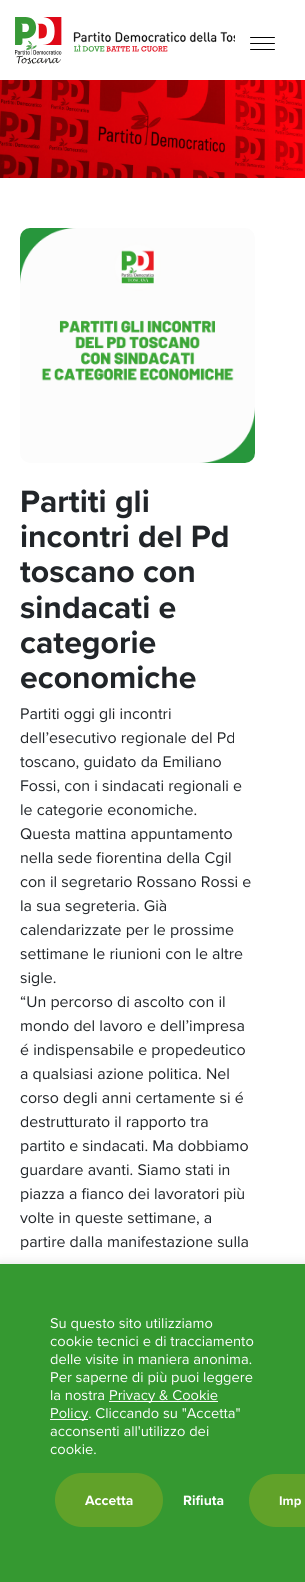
#include <cairo/cairo.h>
#include <math.h>
#include <stddef.h>

static cairo_t *cr;

static void use_color(int r, int g, int b) {
  cairo_set_source_rgb(cr, r / 255.0, g / 255.0, b / 255.0);
}

static void text(double x, double y, const char *s, const char *family, double size, int italic, int bold, int r, int g, int b) {
  cairo_select_font_face(cr, family, italic ? CAIRO_FONT_SLANT_ITALIC : CAIRO_FONT_SLANT_NORMAL,
    bold ? CAIRO_FONT_WEIGHT_BOLD : CAIRO_FONT_WEIGHT_NORMAL);
  cairo_set_font_size(cr, size);
  use_color(r, g, b);
  cairo_move_to(cr, x, y);
  cairo_show_text(cr, s);
}

static void box(double x, double y, double w, double h, int r, int g, int b) {
  use_color(r, g, b);
  cairo_rectangle(cr, x, y, w, h);
  cairo_fill(cr);
}

static void round_rect(double x, double y, double w, double h, double r) {
  cairo_new_sub_path(cr);
  cairo_arc(cr, x + w - r, y + h - r, r, 0, M_PI / 2);
  cairo_arc(cr, x + r, y + h - r, r, M_PI / 2, M_PI);
  cairo_arc(cr, x + r, y + r, r, M_PI, 1.5 * M_PI);
  cairo_arc(cr, x + w - r, y + r, r, 1.5 * M_PI, 2 * M_PI);
  cairo_close_path(cr);
}

static void shadow(double x, double y, double w, double h, double r, double blur, double alpha) {
  cairo_push_group_with_content(cr, CAIRO_CONTENT_ALPHA);
  cairo_set_operator(cr, CAIRO_OPERATOR_SOURCE);
  for (int i = 15; i >= -15 && fmin(w, h) + blur * i / 3 > 0; i -= 2) {
    double e = blur * i / 6;
    cairo_set_source_rgba(cr, 0, 0, 0, alpha * erfc((i - 1) / 8.5) / 2);
    round_rect(x - e, y - e, w + 2 * e, h + 2 * e, fmax(0, fmin(r + e + blur * .6, fmin(w, h) / 2 + e)));
    cairo_fill(cr);
  }
  cairo_pattern_t *soft = cairo_pop_group(cr);
  cairo_mask(cr, soft);
  cairo_pattern_destroy(soft);
}

static void picture(const char *path, double x, double y, double w, double h) {
  cairo_surface_t *image = cairo_image_surface_create_from_png(path);
  cairo_save(cr);
  cairo_set_source_surface(cr, image, x, y);
  cairo_rectangle(cr, x, y, w, h);
  cairo_fill(cr);
  cairo_restore(cr);
  cairo_surface_destroy(image);
}

static void draw(void) {
  use_color(255, 255, 255);
  cairo_paint(cr);
  picture("img_01.png", 15, 17, 220, 47);
  use_color(0, 0, 0);
  round_rect(250, 37, 25, 1, 0.5);
  cairo_fill(cr);
  round_rect(250, 43, 25, 1, 0.5);
  cairo_fill(cr);
  round_rect(250, 49, 25, 1, 0.5);
  cairo_fill(cr);
  picture("img_02.png", 0, 80, 305, 98);
  picture("img_03.png", 20, 228, 235, 235);
  use_color(172, 171, 171);
  shadow(0, 1263, 305, 318, 0, 5, 0.3);
  box(0, 1264, 305, 318, 53, 153, 49);
  box(109, 1401, 109, 1, 255, 255, 255);
  box(50, 1419, 38, 1, 255, 255, 255);
  use_color(97, 162, 41);
  round_rect(55, 1473, 108, 54, 27);
  cairo_fill(cr);
  round_rect(249, 1474, 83, 53, 26.5);
  cairo_fill(cr);
  text(20, 512, "Partiti gli", "Proxima Nova", 32, 0, 1, 33, 37, 41);
  text(20, 547, "incontri del Pd", "Proxima Nova", 32, 0, 1, 33, 37, 41);
  text(20, 582, "toscano con", "Proxima Nova", 32, 0, 1, 33, 37, 41);
  text(20, 618, "sindacati e", "Proxima Nova", 32, 0, 1, 33, 37, 41);
  text(20, 653, "categorie", "Proxima Nova", 32, 0, 1, 33, 37, 41);
  text(20, 688, "economiche", "Proxima Nova", 32, 0, 1, 33, 37, 41);
  text(20, 719, "Partiti oggi gli incontri", "Proxima Nova", 16, 0, 0, 33, 37, 41);
  text(20, 743, "dell’esecutivo regionale del Pd", "Proxima Nova", 16, 0, 0, 33, 37, 41);
  text(20, 767, "toscano, guidato da Emiliano", "Proxima Nova", 16, 0, 0, 33, 37, 41);
  text(20, 791, "Fossi, con i sindacati regionali e", "Proxima Nova", 16, 0, 0, 33, 37, 41);
  text(20, 815, "le categorie economiche.", "Proxima Nova", 16, 0, 0, 33, 37, 41);
  text(20, 839, "Questa mattina appuntamento", "Proxima Nova", 16, 0, 0, 33, 37, 41);
  text(20, 863, "nella sede fiorentina della Cgil", "Proxima Nova", 16, 0, 0, 33, 37, 41);
  text(20, 887, "con il segretario Rossano Rossi e", "Proxima Nova", 16, 0, 0, 33, 37, 41);
  text(20, 911, "la sua segreteria. Già", "Proxima Nova", 16, 0, 0, 33, 37, 41);
  text(20, 935, "calendarizzate per le prossime", "Proxima Nova", 16, 0, 0, 33, 37, 41);
  text(20, 959, "settimane le riunioni con le altre", "Proxima Nova", 16, 0, 0, 33, 37, 41);
  text(20, 983, "sigle.", "Proxima Nova", 16, 0, 0, 33, 37, 41);
  text(20, 1007, "“Un percorso di ascolto con il", "Proxima Nova", 16, 0, 0, 33, 37, 41);
  text(20, 1031, "mondo del lavoro e dell’impresa", "Proxima Nova", 16, 0, 0, 33, 37, 41);
  text(20, 1055, "é indispensabile e propedeutico", "Proxima Nova", 16, 0, 0, 33, 37, 41);
  text(20, 1079, "a qualsiasi azione politica. Nel", "Proxima Nova", 16, 0, 0, 33, 37, 41);
  text(20, 1103, "corso degli anni certamente si é", "Proxima Nova", 16, 0, 0, 33, 37, 41);
  text(20, 1127, "destrutturato il rapporto tra", "Proxima Nova", 16, 0, 0, 33, 37, 41);
  text(20, 1151, "partito e sindacati. Ma dobbiamo", "Proxima Nova", 16, 0, 0, 33, 37, 41);
  text(20, 1175, "guardare avanti. Siamo stati in", "Proxima Nova", 16, 0, 0, 33, 37, 41);
  text(20, 1199, "piazza a fianco dei lavoratori più", "Proxima Nova", 16, 0, 0, 33, 37, 41);
  text(20, 1223, "volte in queste settimane, a", "Proxima Nova", 16, 0, 0, 33, 37, 41);
  text(20, 1247, "partire dalla manifestazione sulla", "Proxima Nova", 16, 0, 0, 33, 37, 41);
  text(50, 1328, "Su questo sito utilizziamo", "Proxima Nova", 14.7, 0, 0, 255, 255, 255);
  text(50, 1346, "cookie tecnici e di tracciamento", "Proxima Nova", 14.7, 0, 0, 255, 255, 255);
  text(50, 1364, "delle visite in maniera anonima.", "Proxima Nova", 14.7, 0, 0, 255, 255, 255);
  text(50, 1382, "Per saperne di più puoi leggere", "Proxima Nova", 14.7, 0, 0, 255, 255, 255);
  text(50, 1400, "la nostra", "Proxima Nova", 14.7, 0, 0, 255, 255, 255);
  text(109, 1400, "Privacy & Cookie", "Proxima Nova", 14.7, 0, 0, 255, 255, 255);
  text(50, 1418, "Policy. Cliccando su \"Accetta\"", "Proxima Nova", 14.7, 0, 0, 255, 255, 255);
  text(50, 1436, "acconsenti all'utilizzo dei", "Proxima Nova", 14.7, 0, 0, 255, 255, 255);
  text(50, 1454, "cookie.", "Proxima Nova", 14.7, 0, 0, 255, 255, 255);
  text(85, 1505, "Accetta", "Proxima Nova", 14, 0, 1, 255, 255, 255);
  text(183, 1505, "Rifiuta", "Proxima Nova", 14, 0, 1, 255, 255, 255);
  text(279, 1505, "Imp", "Proxima Nova", 13, 0, 1, 255, 255, 255);
}

int main(void) {
  cairo_surface_t *surface = cairo_image_surface_create(CAIRO_FORMAT_RGB24, 305, 1582);
  cr = cairo_create(surface);
  cairo_font_options_t *options = cairo_font_options_create();
  cairo_font_options_set_hint_metrics(options, CAIRO_HINT_METRICS_OFF);
  cairo_font_options_set_hint_style(options, CAIRO_HINT_STYLE_NONE);
  cairo_set_font_options(cr, options);
  cairo_set_miter_limit(cr, 4);
  draw();
  cairo_surface_write_to_png(surface, "out.png");
  cairo_font_options_destroy(options);
  cairo_destroy(cr);
  cairo_surface_destroy(surface);
  return 0;
}
